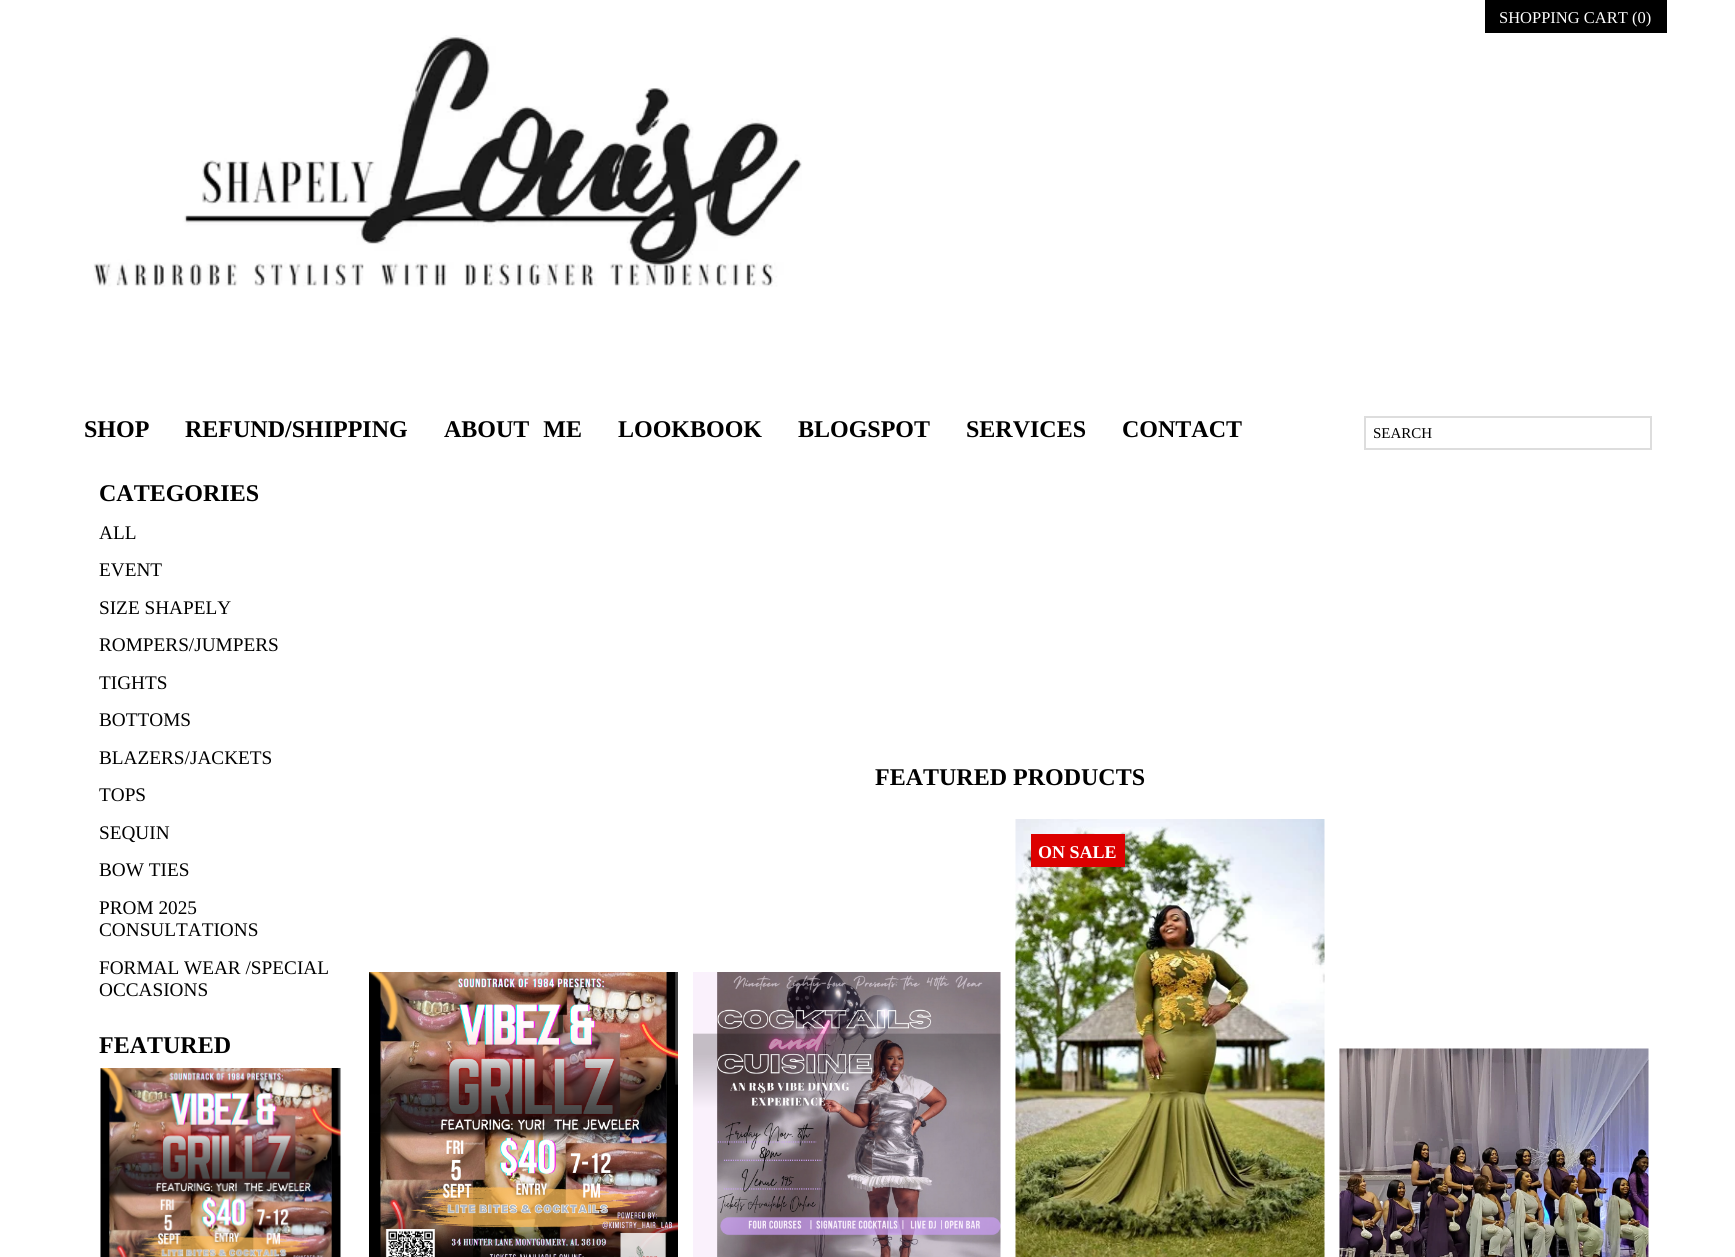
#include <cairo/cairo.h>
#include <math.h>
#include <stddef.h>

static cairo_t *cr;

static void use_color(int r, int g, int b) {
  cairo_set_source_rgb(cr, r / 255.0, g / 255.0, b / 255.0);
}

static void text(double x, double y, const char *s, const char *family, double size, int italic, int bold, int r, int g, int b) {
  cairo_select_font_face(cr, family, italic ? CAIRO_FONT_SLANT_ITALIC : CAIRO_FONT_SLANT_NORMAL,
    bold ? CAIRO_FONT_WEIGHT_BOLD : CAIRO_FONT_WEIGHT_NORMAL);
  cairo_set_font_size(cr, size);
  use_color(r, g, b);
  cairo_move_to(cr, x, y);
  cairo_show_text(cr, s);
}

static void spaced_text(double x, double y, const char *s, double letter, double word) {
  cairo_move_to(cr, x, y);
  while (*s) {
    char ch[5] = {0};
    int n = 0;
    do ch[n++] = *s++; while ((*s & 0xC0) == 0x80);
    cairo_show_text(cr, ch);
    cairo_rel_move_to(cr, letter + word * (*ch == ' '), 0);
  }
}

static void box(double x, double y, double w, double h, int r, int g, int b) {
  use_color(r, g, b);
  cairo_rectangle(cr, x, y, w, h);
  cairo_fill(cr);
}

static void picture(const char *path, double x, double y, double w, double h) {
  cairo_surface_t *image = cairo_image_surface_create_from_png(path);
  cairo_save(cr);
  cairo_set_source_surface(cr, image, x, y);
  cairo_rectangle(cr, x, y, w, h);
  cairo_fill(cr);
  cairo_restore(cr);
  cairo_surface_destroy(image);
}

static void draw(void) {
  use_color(255, 255, 255);
  cairo_paint(cr);
  box(1485, 0, 182, 33, 0, 0, 0);
  picture("img_01.png", 93, 35, 709, 252);
  cairo_rectangle(cr, 1365, 417, 286, 32);
  use_color(221, 221, 221);
  cairo_stroke(cr);
  picture("img_02.png", 100, 1068, 241, 189);
  picture("img_03.png", 1015, 819, 310, 438);
  box(1031, 834, 94, 33, 220, 0, 0);
  picture("img_04.png", 369, 972, 309, 285);
  picture("img_05.png", 693, 972, 308, 285);
  picture("img_06.png", 1339, 1048, 310, 209);
  text(1499, 23, "SHOPPING CART (0)", "Liberation Serif", 16.5, 0, 0, 255, 255, 255);
  text(84, 437, "SHOP", "Liberation Serif", 24, 0, 1, 0, 0, 0);
  text(185, 437, "REFUND/SHIPPING", "Liberation Serif", 24, 0, 1, 0, 0, 0);
  spaced_text(444, 437, "ABOUT ME", 0, 8);
  text(618, 437, "LOOKBOOK", "Liberation Serif", 24, 0, 1, 0, 0, 0);
  text(798, 437, "BLOGSPOT", "Liberation Serif", 24, 0, 1, 0, 0, 0);
  text(966, 437, "SERVICES", "Liberation Serif", 24, 0, 1, 0, 0, 0);
  text(1122, 437, "CONTACT", "Liberation Serif", 24, 0, 1, 0, 0, 0);
  text(1373, 438, "SEARCH", "Liberation Serif", 15, 0, 0, 0, 0, 0);
  text(99, 501, "CATEGORIES", "Liberation Serif", 24, 0, 1, 0, 0, 0);
  text(99, 539, "ALL", "Liberation Serif", 19.25, 0, 0, 0, 0, 0);
  text(99, 576, "EVENT", "Liberation Serif", 19.25, 0, 0, 0, 0, 0);
  text(99, 614, "SIZE SHAPELY", "Liberation Serif", 19.25, 0, 0, 0, 0, 0);
  text(99, 651, "ROMPERS/JUMPERS", "Liberation Serif", 19.25, 0, 0, 0, 0, 0);
  text(99, 689, "TIGHTS", "Liberation Serif", 19.25, 0, 0, 0, 0, 0);
  text(99, 726, "BOTTOMS", "Liberation Serif", 19.25, 0, 0, 0, 0, 0);
  text(99, 764, "BLAZERS/JACKETS", "Liberation Serif", 19.25, 0, 0, 0, 0, 0);
  text(99, 801, "TOPS", "Liberation Serif", 19.25, 0, 0, 0, 0, 0);
  text(99, 839, "SEQUIN", "Liberation Serif", 19.25, 0, 0, 0, 0, 0);
  text(99, 876, "BOW TIES", "Liberation Serif", 19.25, 0, 0, 0, 0, 0);
  text(99, 914, "PROM 2025", "Liberation Serif", 19.25, 0, 0, 0, 0, 0);
  text(99, 936, "CONSULTATIONS", "Liberation Serif", 19.25, 0, 0, 0, 0, 0);
  text(99, 974, "FORMAL WEAR /SPECIAL", "Liberation Serif", 19.25, 0, 0, 0, 0, 0);
  text(99, 996, "OCCASIONS", "Liberation Serif", 19.25, 0, 0, 0, 0, 0);
  text(99, 1053, "FEATURED", "Liberation Serif", 24, 0, 1, 0, 0, 0);
  text(875, 785, "FEATURED PRODUCTS", "Liberation Serif", 24, 0, 1, 0, 0, 0);
  text(1038, 858, "ON SALE", "Liberation Serif", 18, 0, 1, 255, 255, 255);
}

int main(void) {
  cairo_surface_t *surface = cairo_image_surface_create(CAIRO_FORMAT_RGB24, 1735, 1257);
  cr = cairo_create(surface);
  cairo_font_options_t *options = cairo_font_options_create();
  cairo_font_options_set_hint_metrics(options, CAIRO_HINT_METRICS_OFF);
  cairo_font_options_set_hint_style(options, CAIRO_HINT_STYLE_NONE);
  cairo_set_font_options(cr, options);
  cairo_set_miter_limit(cr, 4);
  draw();
  cairo_surface_write_to_png(surface, "out.png");
  cairo_font_options_destroy(options);
  cairo_destroy(cr);
  cairo_surface_destroy(surface);
  return 0;
}
